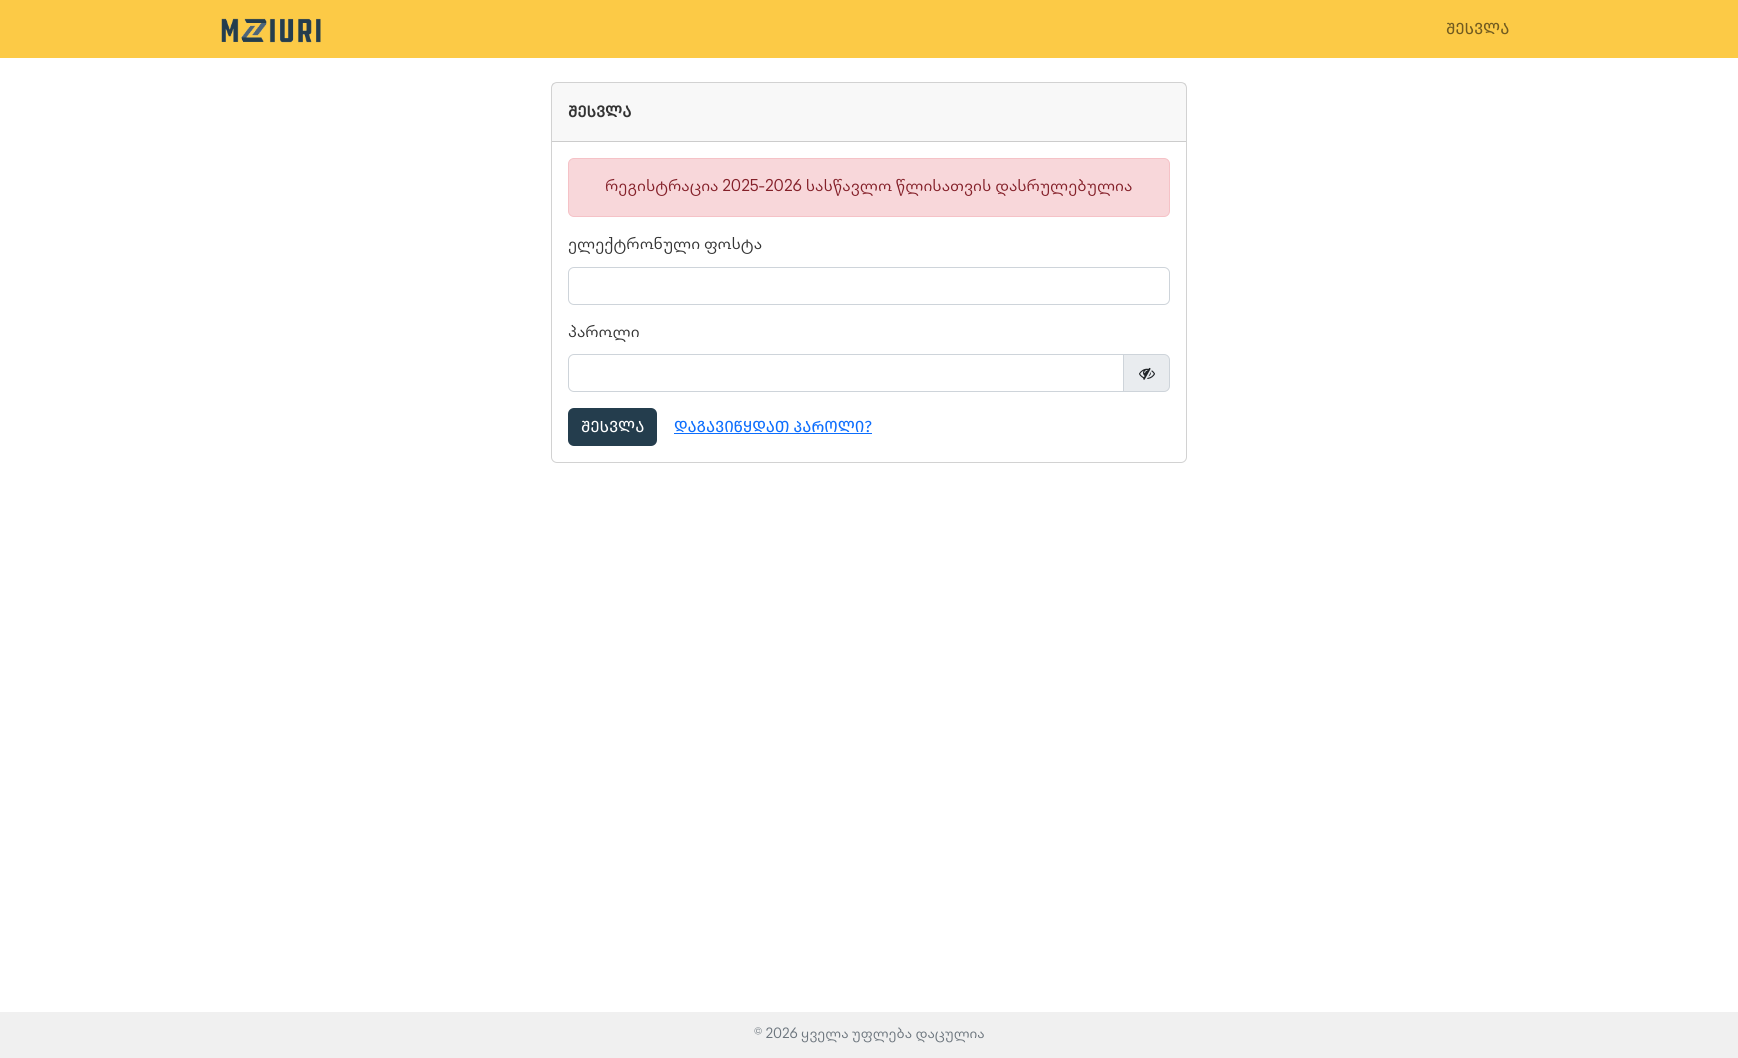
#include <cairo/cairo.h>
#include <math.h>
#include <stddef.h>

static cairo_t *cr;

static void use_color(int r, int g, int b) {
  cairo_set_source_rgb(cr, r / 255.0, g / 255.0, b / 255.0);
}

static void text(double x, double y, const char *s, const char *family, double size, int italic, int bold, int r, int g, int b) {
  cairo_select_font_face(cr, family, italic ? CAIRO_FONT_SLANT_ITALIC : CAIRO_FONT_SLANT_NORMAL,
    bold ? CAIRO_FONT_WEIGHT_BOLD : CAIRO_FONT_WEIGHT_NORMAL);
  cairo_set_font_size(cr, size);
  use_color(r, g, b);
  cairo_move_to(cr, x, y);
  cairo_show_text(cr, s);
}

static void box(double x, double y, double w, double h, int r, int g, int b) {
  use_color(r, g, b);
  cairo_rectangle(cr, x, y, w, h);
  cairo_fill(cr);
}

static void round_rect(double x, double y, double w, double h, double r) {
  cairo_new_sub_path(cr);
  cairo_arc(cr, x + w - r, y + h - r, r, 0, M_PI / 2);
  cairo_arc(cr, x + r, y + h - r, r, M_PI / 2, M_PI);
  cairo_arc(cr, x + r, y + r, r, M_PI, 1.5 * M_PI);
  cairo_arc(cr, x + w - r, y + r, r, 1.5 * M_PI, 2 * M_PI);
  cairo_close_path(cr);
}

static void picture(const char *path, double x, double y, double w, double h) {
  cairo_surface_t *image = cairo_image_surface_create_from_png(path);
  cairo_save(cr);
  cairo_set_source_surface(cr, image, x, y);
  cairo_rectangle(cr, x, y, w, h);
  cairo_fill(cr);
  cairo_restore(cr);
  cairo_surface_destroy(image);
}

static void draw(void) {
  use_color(255, 255, 255);
  cairo_paint(cr);
  box(0, 0, 1738, 58, 252, 202, 70);
  picture("img_01.png", 221, 18, 100, 25);
  round_rect(551.5, 82.5, 635, 380, 5.5);
  use_color(210, 210, 210);
  cairo_set_line_width(cr, 1);
  cairo_stroke(cr);
  cairo_set_source_rgba(cr, 0, 0, 0, 0.03);
  cairo_rectangle(cr, 552, 83, 634, 58);
  cairo_fill(cr);
  box(552, 141, 634, 1, 204, 204, 204);
  use_color(248, 215, 218);
  round_rect(568.5, 158.5, 601, 58, 5.5);
  cairo_fill_preserve(cr);
  use_color(245, 194, 199);
  cairo_stroke(cr);
  round_rect(568.5, 267.5, 601, 37, 5.5);
  use_color(206, 212, 218);
  cairo_stroke(cr);
  use_color(233, 236, 239);
  cairo_new_path(cr);
  cairo_move_to(cr, 1123.5, 354.5);
  cairo_line_to(cr, 1164, 354.5);
  cairo_curve_to(cr, 1167, 354.5, 1169.5, 357, 1169.5, 360);
  cairo_line_to(cr, 1169.5, 386);
  cairo_curve_to(cr, 1169.5, 389, 1167, 391.5, 1164, 391.5);
  cairo_line_to(cr, 1123.5, 391.5);
  cairo_close_path(cr);
  cairo_fill_preserve(cr);
  use_color(206, 212, 218);
  cairo_stroke(cr);
  cairo_new_path(cr);
  cairo_move_to(cr, 574, 354.5);
  cairo_line_to(cr, 1123.5, 354.5);
  cairo_line_to(cr, 1123.5, 391.5);
  cairo_line_to(cr, 574, 391.5);
  cairo_curve_to(cr, 571, 391.5, 568.5, 389, 568.5, 386);
  cairo_line_to(cr, 568.5, 360);
  cairo_curve_to(cr, 568.5, 357, 571, 354.5, 574, 354.5);
  cairo_close_path(cr);
  cairo_stroke(cr);
  picture("img_02.png", 1139, 367, 16, 13);
  use_color(36, 61, 77);
  round_rect(568, 408, 89, 38, 6);
  cairo_fill(cr);
  box(674, 433, 198, 1, 13, 110, 253);
  box(0, 1012, 1738, 46, 240, 240, 240);
  text(1446, 34, "შესვლა", "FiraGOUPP", 16, 0, 0, 113, 91, 32);
  text(568, 117, "შესვლა", "FiraGOUPP", 16, 0, 1, 51, 51, 51);
  text(605, 191, "რეგისტრაცია 2025-2026 სასწავლო წლისათვის დასრულებულია", "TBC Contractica", 16, 0, 0, 132, 32, 41);
  text(568, 249, "ელექტრონული ფოსტა", "TBC Contractica", 16, 0, 0, 51, 51, 51);
  text(568, 337, "პაროლი", "TBC Contractica", 16, 0, 0, 51, 51, 51);
  text(581, 432, "შესვლა", "FiraGOUPP", 16, 0, 0, 255, 255, 255);
  text(674, 432, "დაგავიწყდათ პაროლი?", "FiraGOUPP", 16, 0, 0, 13, 110, 253);
  text(754, 1038, "© 2026 ყველა უფლება დაცულია", "TBC Contractica", 14, 0, 0, 108, 117, 125);
}

int main(void) {
  cairo_surface_t *surface = cairo_image_surface_create(CAIRO_FORMAT_RGB24, 1738, 1058);
  cr = cairo_create(surface);
  cairo_font_options_t *options = cairo_font_options_create();
  cairo_font_options_set_hint_metrics(options, CAIRO_HINT_METRICS_OFF);
  cairo_font_options_set_hint_style(options, CAIRO_HINT_STYLE_NONE);
  cairo_set_font_options(cr, options);
  cairo_set_miter_limit(cr, 4);
  draw();
  cairo_surface_write_to_png(surface, "out.png");
  cairo_font_options_destroy(options);
  cairo_destroy(cr);
  cairo_surface_destroy(surface);
  return 0;
}
